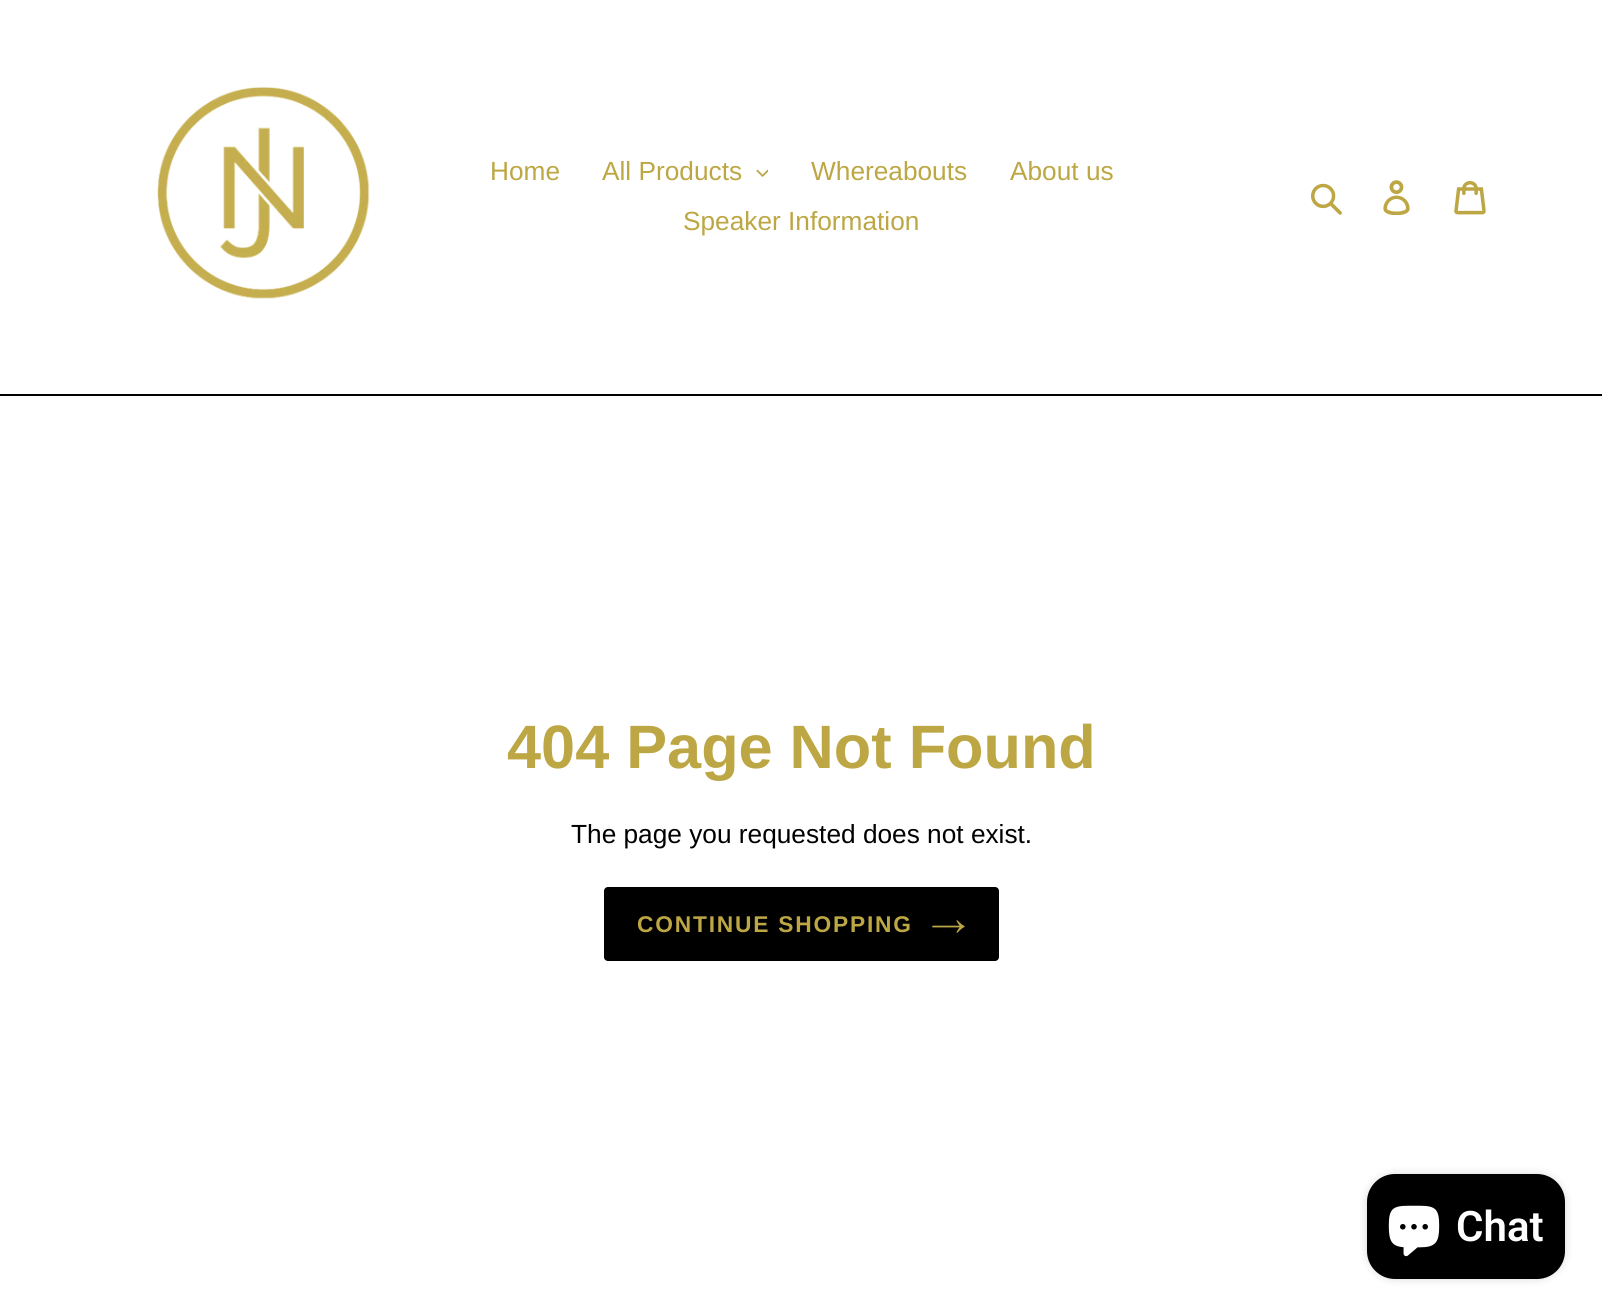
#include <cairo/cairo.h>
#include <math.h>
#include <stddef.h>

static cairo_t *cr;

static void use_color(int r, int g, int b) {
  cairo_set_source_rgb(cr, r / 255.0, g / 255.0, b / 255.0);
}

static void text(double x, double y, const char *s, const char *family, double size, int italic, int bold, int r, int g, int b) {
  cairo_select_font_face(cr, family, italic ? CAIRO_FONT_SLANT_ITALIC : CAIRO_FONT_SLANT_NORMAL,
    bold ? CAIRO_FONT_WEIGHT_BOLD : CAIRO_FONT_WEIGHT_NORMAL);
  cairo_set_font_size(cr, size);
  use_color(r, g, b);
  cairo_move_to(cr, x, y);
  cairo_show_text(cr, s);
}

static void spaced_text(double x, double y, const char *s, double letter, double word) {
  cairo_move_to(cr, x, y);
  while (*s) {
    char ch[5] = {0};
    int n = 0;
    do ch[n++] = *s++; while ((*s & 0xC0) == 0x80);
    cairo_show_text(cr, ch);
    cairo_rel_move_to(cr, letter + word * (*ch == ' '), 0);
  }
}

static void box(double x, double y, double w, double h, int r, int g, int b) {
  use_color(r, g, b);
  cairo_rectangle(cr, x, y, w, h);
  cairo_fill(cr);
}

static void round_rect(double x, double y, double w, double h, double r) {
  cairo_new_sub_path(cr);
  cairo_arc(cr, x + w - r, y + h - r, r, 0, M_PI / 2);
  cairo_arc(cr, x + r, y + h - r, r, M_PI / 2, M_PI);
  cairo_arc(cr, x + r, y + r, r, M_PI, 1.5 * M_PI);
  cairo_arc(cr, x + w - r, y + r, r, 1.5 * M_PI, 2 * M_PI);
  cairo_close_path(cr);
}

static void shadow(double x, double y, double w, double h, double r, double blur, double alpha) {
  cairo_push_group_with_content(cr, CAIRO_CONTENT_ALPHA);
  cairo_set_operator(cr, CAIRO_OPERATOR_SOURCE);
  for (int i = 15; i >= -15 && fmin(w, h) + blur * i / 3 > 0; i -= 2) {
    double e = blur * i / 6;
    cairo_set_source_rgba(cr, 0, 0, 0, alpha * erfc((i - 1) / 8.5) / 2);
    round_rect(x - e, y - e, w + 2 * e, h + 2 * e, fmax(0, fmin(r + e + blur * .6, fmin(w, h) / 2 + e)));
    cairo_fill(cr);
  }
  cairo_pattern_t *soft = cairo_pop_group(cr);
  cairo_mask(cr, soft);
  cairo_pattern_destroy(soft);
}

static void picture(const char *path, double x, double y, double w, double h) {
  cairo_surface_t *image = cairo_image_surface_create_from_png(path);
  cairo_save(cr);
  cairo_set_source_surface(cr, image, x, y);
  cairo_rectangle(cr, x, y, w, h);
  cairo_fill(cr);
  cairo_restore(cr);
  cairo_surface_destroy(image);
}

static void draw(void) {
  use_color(255, 255, 255);
  cairo_paint(cr);
  box(0, 394, 1602, 2, 0, 0, 0);
  picture("img_01.png", 157, 87, 213, 212);
  picture("img_02.png", 756, 169, 12, 8);
  picture("img_03.png", 1311, 183, 31, 32);
  picture("img_04.png", 1383, 180, 27, 35);
  picture("img_05.png", 1454, 181, 32, 34);
  round_rect(604, 887, 395, 74, 4);
  cairo_fill(cr);
  picture("img_06.png", 932, 920, 33, 13);
  use_color(0, 0, 0);
  shadow(1367, 1174, 198, 105, 28, 4.5, 0.15);
  use_color(0, 0, 0);
  round_rect(1367, 1174, 198, 105, 28);
  cairo_fill(cr);
  picture("img_07.png", 1388, 1205, 52, 52);
  text(490, 180, "Home", "Liberation Sans", 26.25, 0, 0, 189, 167, 68);
  text(602, 180, "All Products", "Liberation Sans", 26.25, 0, 0, 189, 167, 68);
  text(811, 180, "Whereabouts", "Liberation Sans", 26.25, 0, 0, 189, 167, 68);
  text(1010, 180, "About us", "Liberation Sans", 26.25, 0, 0, 189, 167, 68);
  text(683, 230, "Speaker Information", "Liberation Sans", 26.25, 0, 0, 189, 167, 68);
  text(507, 768, "404 Page Not Found", "Liberation Sans", 61.25, 0, 1, 189, 167, 68);
  text(571, 843, "The page you requested does not exist.", "Liberation Sans", 26.25, 0, 0, 0, 0, 0);
  cairo_select_font_face(cr, "Liberation Sans", CAIRO_FONT_SLANT_NORMAL, CAIRO_FONT_WEIGHT_BOLD);
  cairo_set_font_size(cr, 22.75);
  use_color(189, 167, 68);
  spaced_text(637, 932, "CONTINUE SHOPPING", 1.8, 0);
  text(1456, 1241, "Chat", "Roboto SemiBold", 42, 0, 0, 255, 255, 255);
}

int main(void) {
  cairo_surface_t *surface = cairo_image_surface_create(CAIRO_FORMAT_RGB24, 1602, 1315);
  cr = cairo_create(surface);
  cairo_font_options_t *options = cairo_font_options_create();
  cairo_font_options_set_hint_metrics(options, CAIRO_HINT_METRICS_OFF);
  cairo_font_options_set_hint_style(options, CAIRO_HINT_STYLE_NONE);
  cairo_set_font_options(cr, options);
  cairo_set_miter_limit(cr, 4);
  draw();
  cairo_surface_write_to_png(surface, "out.png");
  cairo_font_options_destroy(options);
  cairo_destroy(cr);
  cairo_surface_destroy(surface);
  return 0;
}
